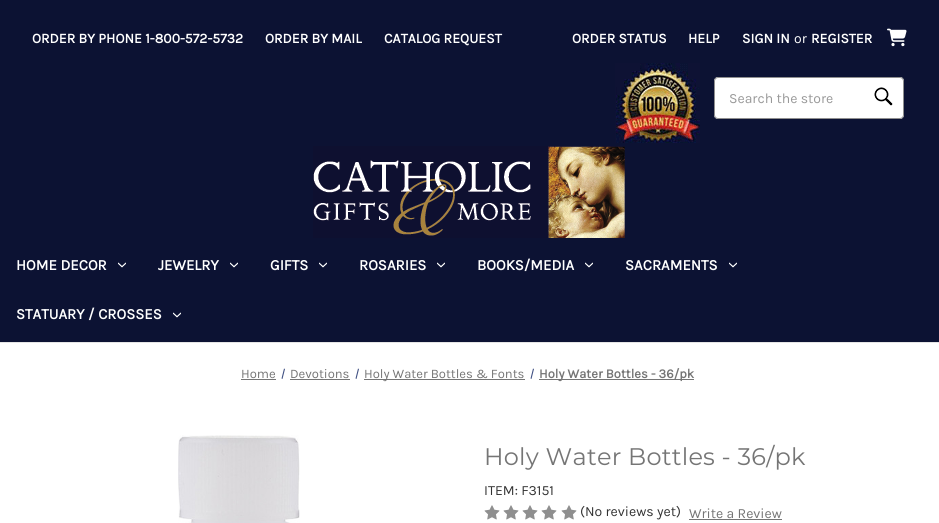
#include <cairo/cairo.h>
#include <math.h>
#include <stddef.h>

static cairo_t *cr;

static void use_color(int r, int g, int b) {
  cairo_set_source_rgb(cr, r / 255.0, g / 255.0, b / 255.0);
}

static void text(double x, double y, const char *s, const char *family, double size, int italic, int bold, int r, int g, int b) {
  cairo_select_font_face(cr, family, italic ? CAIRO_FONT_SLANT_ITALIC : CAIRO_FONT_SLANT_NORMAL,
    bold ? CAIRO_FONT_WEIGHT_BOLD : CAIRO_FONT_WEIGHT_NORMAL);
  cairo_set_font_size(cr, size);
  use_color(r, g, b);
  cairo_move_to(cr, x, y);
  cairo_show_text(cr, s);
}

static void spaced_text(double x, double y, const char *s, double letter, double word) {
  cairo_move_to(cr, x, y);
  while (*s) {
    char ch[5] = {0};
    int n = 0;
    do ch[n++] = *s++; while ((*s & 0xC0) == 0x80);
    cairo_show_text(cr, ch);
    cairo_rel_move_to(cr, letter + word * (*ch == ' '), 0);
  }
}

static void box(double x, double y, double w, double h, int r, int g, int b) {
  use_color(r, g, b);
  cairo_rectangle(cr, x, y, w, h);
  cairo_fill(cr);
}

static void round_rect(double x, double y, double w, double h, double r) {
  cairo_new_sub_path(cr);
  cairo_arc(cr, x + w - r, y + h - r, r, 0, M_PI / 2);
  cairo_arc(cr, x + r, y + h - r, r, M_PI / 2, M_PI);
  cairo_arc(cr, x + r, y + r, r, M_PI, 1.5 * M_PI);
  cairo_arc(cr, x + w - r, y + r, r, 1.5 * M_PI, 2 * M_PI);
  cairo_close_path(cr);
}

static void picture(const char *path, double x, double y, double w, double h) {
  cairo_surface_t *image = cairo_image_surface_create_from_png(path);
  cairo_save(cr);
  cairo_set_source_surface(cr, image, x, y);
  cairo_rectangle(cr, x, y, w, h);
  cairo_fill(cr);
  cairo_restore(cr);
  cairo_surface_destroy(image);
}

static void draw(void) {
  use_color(255, 255, 255);
  cairo_paint(cr);
  box(0, 0, 939, 342, 12, 18, 51);
  box(0, 342, 939, 1, 229, 229, 229);
  picture("img_01.png", 887, 28, 20, 19);
  picture("img_02.png", 615, 63, 85, 80);
  use_color(255, 255, 255);
  round_rect(714, 77, 190, 42, 4);
  cairo_fill(cr);
  picture("img_03.png", 874, 78, 29, 40);
  round_rect(714.5, 77.5, 189, 41, 3.5);
  use_color(143, 143, 143);
  cairo_set_line_width(cr, 1);
  cairo_stroke(cr);
  picture("img_04.png", 313, 146, 312, 92);
  picture("img_05.png", 118, 262, 8, 6);
  picture("img_05.png", 230, 262, 8, 6);
  picture("img_05.png", 319, 262, 8, 6);
  picture("img_05.png", 437, 262, 8, 6);
  picture("img_05.png", 585, 262, 8, 6);
  picture("img_05.png", 729, 262, 8, 6);
  picture("img_05.png", 173, 312, 8, 6);
  box(241, 379, 35, 1, 117, 117, 117);
  use_color(63, 79, 130);
  cairo_new_path(cr);
  cairo_move_to(cr, 284, 368.5);
  cairo_line_to(cr, 285, 369);
  cairo_line_to(cr, 282.5, 379);
  cairo_line_to(cr, 281.5, 378.5);
  cairo_close_path(cr);
  cairo_fill(cr);
  box(290, 379, 60, 1, 117, 117, 117);
  use_color(63, 79, 130);
  cairo_new_path(cr);
  cairo_move_to(cr, 358, 368.5);
  cairo_line_to(cr, 359, 369);
  cairo_line_to(cr, 356.5, 379);
  cairo_line_to(cr, 355.5, 378.5);
  cairo_close_path(cr);
  cairo_fill(cr);
  box(364, 379, 161, 1, 117, 117, 117);
  use_color(63, 79, 130);
  cairo_new_path(cr);
  cairo_move_to(cr, 533, 368.5);
  cairo_line_to(cr, 534, 369);
  cairo_line_to(cr, 531.5, 379);
  cairo_line_to(cr, 530.5, 378.5);
  cairo_close_path(cr);
  cairo_fill(cr);
  box(539, 379, 155, 1, 117, 117, 117);
  picture("img_06.png", 178, 435, 122, 88);
  picture("img_07.png", 484, 505, 16, 15);
  picture("img_07.png", 503, 505, 16, 15);
  picture("img_07.png", 522, 505, 16, 15);
  picture("img_07.png", 541, 505, 16, 15);
  picture("img_07.png", 561, 505, 16, 15);
  box(689, 519, 93, 1, 117, 117, 117);
  text(32, 43, "ORDER BY PHONE 1-800-572-5732", "Karla", 14, 0, 1, 255, 255, 255);
  text(265, 43, "ORDER BY MAIL", "Karla", 14, 0, 1, 255, 255, 255);
  text(384, 43, "CATALOG REQUEST", "Karla", 14, 0, 1, 255, 255, 255);
  text(572, 43, "ORDER STATUS", "Karla", 14, 0, 1, 255, 255, 255);
  text(688, 43, "HELP", "Karla", 14, 0, 1, 255, 255, 255);
  text(742, 43, "SIGN IN", "Karla", 14, 0, 1, 255, 255, 255);
  text(794, 43, "or", "Karla", 14, 0, 0, 255, 255, 255);
  text(811, 43, "REGISTER", "Karla", 14, 0, 1, 255, 255, 255);
  text(729, 103, "Search the store", "Karla", 14, 0, 0, 153, 153, 153);
  text(16, 270, "HOME DECOR", "Karla", 15, 0, 1, 255, 255, 255);
  text(158, 270, "JEWELRY", "Karla", 15, 0, 1, 255, 255, 255);
  text(270, 270, "GIFTS", "Karla", 15, 0, 1, 255, 255, 255);
  text(359, 270, "ROSARIES", "Karla", 15, 0, 1, 255, 255, 255);
  text(477, 270, "BOOKS/MEDIA", "Karla", 15, 0, 1, 255, 255, 255);
  text(625, 270, "SACRAMENTS", "Karla", 15, 0, 1, 255, 255, 255);
  text(16, 319, "STATUARY / CROSSES", "Karla", 15, 0, 1, 255, 255, 255);
  text(241, 378, "Home", "Karla", 13, 0, 0, 117, 117, 117);
  text(290, 378, "Devotions", "Karla", 13, 0, 0, 117, 117, 117);
  text(364, 378, "Holy Water Bottles & Fonts", "Karla", 13, 0, 0, 117, 117, 117);
  text(539, 378, "Holy Water Bottles - 36/pk", "Karla", 13, 0, 1, 117, 117, 117);
  cairo_select_font_face(cr, "Montserrat", CAIRO_FONT_SLANT_NORMAL, CAIRO_FONT_WEIGHT_NORMAL);
  cairo_set_font_size(cr, 24);
  spaced_text(484, 465, "Holy Water Bottles - 36/pk", 0.25, 0);
  text(484, 495, "ITEM: F3151", "Karla", 14, 0, 0, 51, 51, 51);
  text(580, 516, "(No reviews yet)", "Karla", 14, 0, 0, 51, 51, 51);
  text(689, 518, "Write a Review", "Karla", 14, 0, 0, 117, 117, 117);
}

int main(void) {
  cairo_surface_t *surface = cairo_image_surface_create(CAIRO_FORMAT_RGB24, 939, 523);
  cr = cairo_create(surface);
  cairo_font_options_t *options = cairo_font_options_create();
  cairo_font_options_set_hint_metrics(options, CAIRO_HINT_METRICS_OFF);
  cairo_font_options_set_hint_style(options, CAIRO_HINT_STYLE_NONE);
  cairo_set_font_options(cr, options);
  cairo_set_miter_limit(cr, 4);
  draw();
  cairo_surface_write_to_png(surface, "out.png");
  cairo_font_options_destroy(options);
  cairo_destroy(cr);
  cairo_surface_destroy(surface);
  return 0;
}
